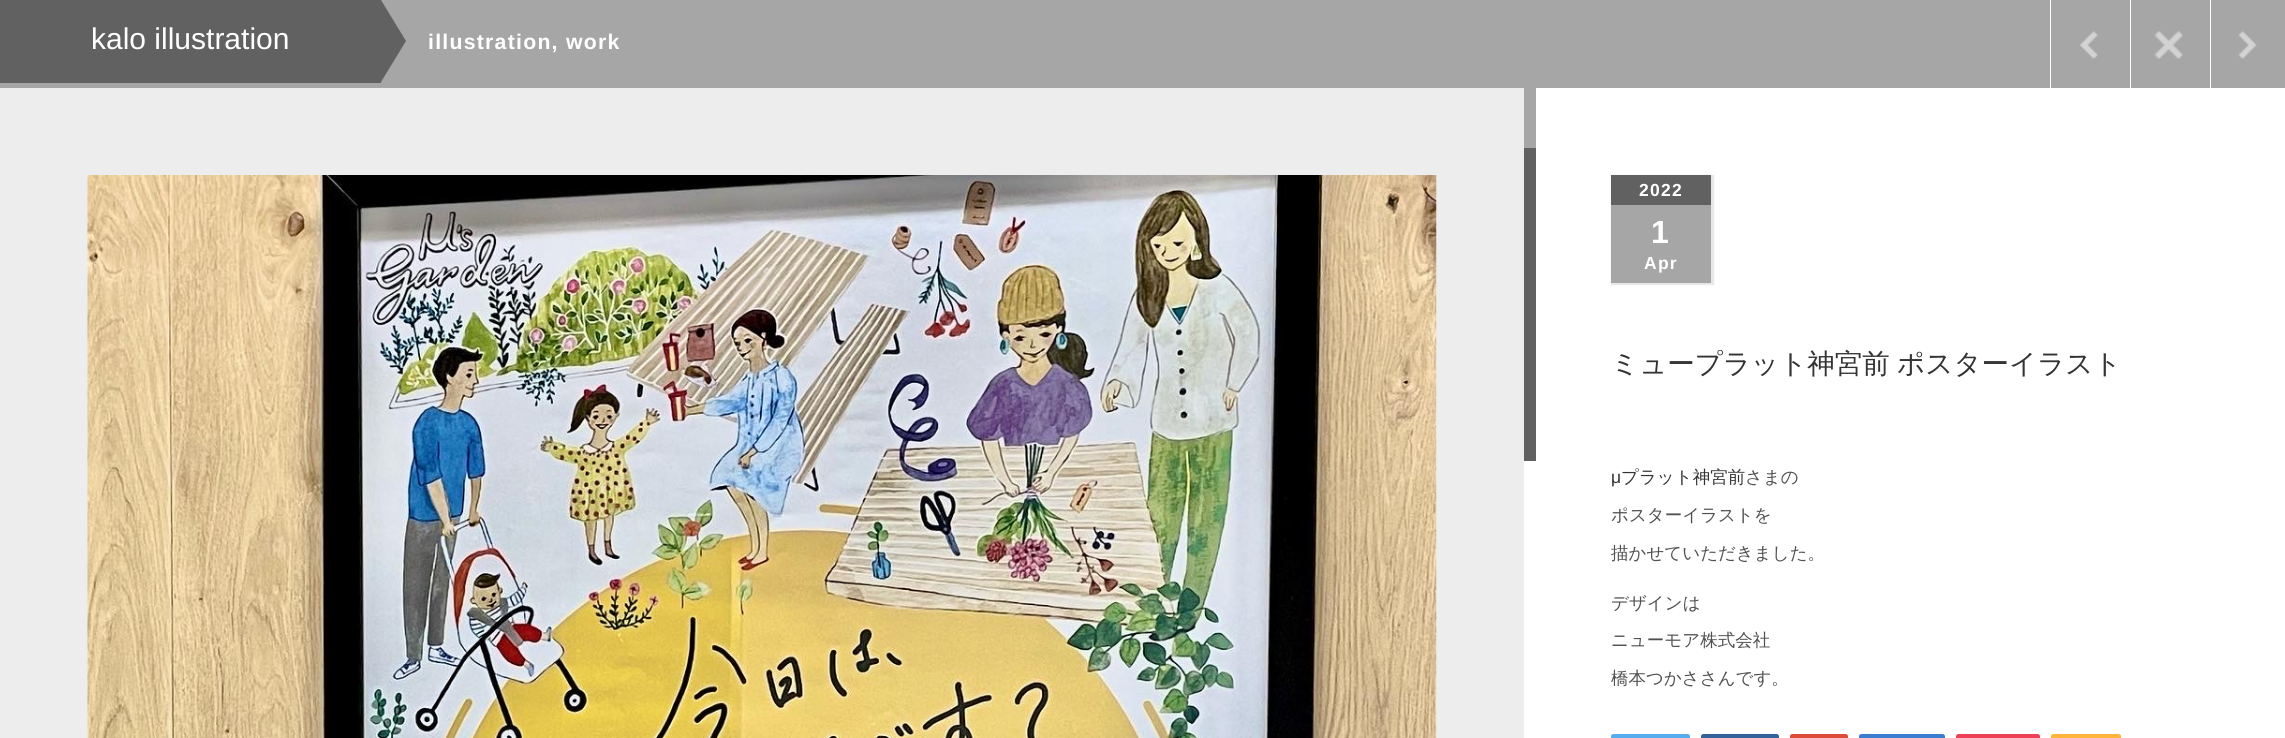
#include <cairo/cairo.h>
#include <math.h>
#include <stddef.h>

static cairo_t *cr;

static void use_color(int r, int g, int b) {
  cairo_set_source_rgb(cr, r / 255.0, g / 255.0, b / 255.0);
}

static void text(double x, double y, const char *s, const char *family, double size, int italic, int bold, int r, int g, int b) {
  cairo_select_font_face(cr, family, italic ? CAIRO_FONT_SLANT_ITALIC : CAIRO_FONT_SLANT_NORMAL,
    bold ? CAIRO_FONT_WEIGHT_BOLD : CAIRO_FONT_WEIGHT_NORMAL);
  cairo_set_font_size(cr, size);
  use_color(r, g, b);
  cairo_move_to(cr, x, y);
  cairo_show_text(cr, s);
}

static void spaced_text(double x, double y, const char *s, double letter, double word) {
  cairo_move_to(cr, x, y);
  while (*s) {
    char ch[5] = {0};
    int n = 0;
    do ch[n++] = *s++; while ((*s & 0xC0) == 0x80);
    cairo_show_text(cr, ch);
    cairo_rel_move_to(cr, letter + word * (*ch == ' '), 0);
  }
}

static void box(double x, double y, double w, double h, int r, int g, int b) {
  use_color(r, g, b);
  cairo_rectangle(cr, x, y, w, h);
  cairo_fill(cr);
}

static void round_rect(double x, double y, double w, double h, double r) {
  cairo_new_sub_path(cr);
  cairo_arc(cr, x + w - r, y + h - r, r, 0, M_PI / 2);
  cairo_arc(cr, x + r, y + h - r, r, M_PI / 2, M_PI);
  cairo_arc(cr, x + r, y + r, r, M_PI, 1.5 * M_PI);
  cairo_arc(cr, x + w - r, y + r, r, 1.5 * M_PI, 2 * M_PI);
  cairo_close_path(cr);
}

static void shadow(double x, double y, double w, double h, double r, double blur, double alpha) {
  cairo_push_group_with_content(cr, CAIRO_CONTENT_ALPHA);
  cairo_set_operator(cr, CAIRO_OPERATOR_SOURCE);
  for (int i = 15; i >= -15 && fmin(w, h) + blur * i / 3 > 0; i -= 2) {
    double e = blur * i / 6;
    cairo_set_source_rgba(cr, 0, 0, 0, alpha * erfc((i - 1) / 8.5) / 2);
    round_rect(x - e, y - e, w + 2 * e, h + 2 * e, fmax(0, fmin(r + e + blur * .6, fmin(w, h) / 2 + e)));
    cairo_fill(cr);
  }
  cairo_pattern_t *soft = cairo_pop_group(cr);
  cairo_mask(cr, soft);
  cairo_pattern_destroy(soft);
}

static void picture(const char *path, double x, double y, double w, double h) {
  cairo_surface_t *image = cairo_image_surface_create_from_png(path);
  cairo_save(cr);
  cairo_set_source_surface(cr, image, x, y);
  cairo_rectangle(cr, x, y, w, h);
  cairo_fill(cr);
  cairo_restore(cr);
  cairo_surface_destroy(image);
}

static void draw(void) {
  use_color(237, 237, 237);
  cairo_paint(cr);
  box(0, 0, 2285, 88, 166, 166, 166);
  box(1524, 88, 761, 650, 255, 255, 255);
  box(1524, 88, 12, 60, 166, 166, 166);
  cairo_save(cr);
  cairo_rectangle(cr, 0, 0, 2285, 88);
  cairo_clip(cr);
  cairo_set_fill_rule(cr, CAIRO_FILL_RULE_EVEN_ODD);
  cairo_new_path(cr);
  cairo_move_to(cr, 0, 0);
  cairo_line_to(cr, 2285, 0);
  cairo_line_to(cr, 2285, 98);
  cairo_line_to(cr, 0, 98);
  cairo_close_path(cr);
  cairo_move_to(cr, 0, 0);
  cairo_line_to(cr, 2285, 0);
  cairo_line_to(cr, 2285, 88);
  cairo_line_to(cr, 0, 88);
  cairo_close_path(cr);
  cairo_clip(cr);
  use_color(0, 0, 0);
  shadow(0, 0, 2285, 88, 0, 3, 1);
  cairo_restore(cr);
  box(0, 0, 381, 83, 97, 97, 97);
  cairo_new_path(cr);
  cairo_move_to(cr, 381, 82);
  cairo_line_to(cr, 381, 0);
  cairo_line_to(cr, 406, 41);
  cairo_close_path(cr);
  cairo_fill(cr);
  box(2050, 0, 1, 88, 255, 255, 255);
  picture("img_01.png", 2080, 31, 18, 28);
  box(2130, 0, 1, 88, 255, 255, 255);
  picture("img_02.png", 2154, 31, 29, 28);
  box(2210, 0, 1, 88, 255, 255, 255);
  picture("img_03.png", 2238, 31, 19, 28);
  picture("img_04.png", 87, 175, 1350, 563);
  box(1524, 148, 12, 313, 97, 97, 97);
  use_color(0, 0, 0);
  shadow(1611, 175, 103, 110, 0, 0.5, 0.1);
  box(1611, 205, 100, 78, 166, 166, 166);
  box(1611, 175, 100, 30, 97, 97, 97);
  use_color(85, 172, 238);
  cairo_new_path(cr);
  cairo_move_to(cr, 1613.5, 734);
  cairo_line_to(cr, 1687.5, 734);
  cairo_curve_to(cr, 1689, 734, 1690, 735, 1690, 736.5);
  cairo_line_to(cr, 1690, 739);
  cairo_line_to(cr, 1611, 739);
  cairo_line_to(cr, 1611, 736.5);
  cairo_curve_to(cr, 1611, 735, 1612, 734, 1613.5, 734);
  cairo_close_path(cr);
  cairo_fill(cr);
  use_color(53, 98, 154);
  cairo_new_path(cr);
  cairo_move_to(cr, 1703.5, 734);
  cairo_line_to(cr, 1776.5, 734);
  cairo_curve_to(cr, 1778, 734, 1779, 735, 1779, 736.5);
  cairo_line_to(cr, 1779, 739);
  cairo_line_to(cr, 1701, 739);
  cairo_line_to(cr, 1701, 736.5);
  cairo_curve_to(cr, 1701, 735, 1702, 734, 1703.5, 734);
  cairo_close_path(cr);
  cairo_fill(cr);
  use_color(221, 75, 57);
  cairo_new_path(cr);
  cairo_move_to(cr, 1792.5, 734);
  cairo_line_to(cr, 1845.5, 734);
  cairo_curve_to(cr, 1847, 734, 1848, 735, 1848, 736.5);
  cairo_line_to(cr, 1848, 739);
  cairo_line_to(cr, 1790, 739);
  cairo_line_to(cr, 1790, 736.5);
  cairo_curve_to(cr, 1790, 735, 1791, 734, 1792.5, 734);
  cairo_close_path(cr);
  cairo_fill(cr);
  use_color(60, 125, 209);
  cairo_new_path(cr);
  cairo_move_to(cr, 1861.5, 734);
  cairo_line_to(cr, 1942.5, 734);
  cairo_curve_to(cr, 1944, 734, 1945, 735, 1945, 736.5);
  cairo_line_to(cr, 1945, 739);
  cairo_line_to(cr, 1859, 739);
  cairo_line_to(cr, 1859, 736.5);
  cairo_curve_to(cr, 1859, 735, 1860, 734, 1861.5, 734);
  cairo_close_path(cr);
  cairo_fill(cr);
  use_color(238, 64, 86);
  cairo_new_path(cr);
  cairo_move_to(cr, 1958.5, 734);
  cairo_line_to(cr, 2037.5, 734);
  cairo_curve_to(cr, 2039, 734, 2040, 735, 2040, 736.5);
  cairo_line_to(cr, 2040, 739);
  cairo_line_to(cr, 1956, 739);
  cairo_line_to(cr, 1956, 736.5);
  cairo_curve_to(cr, 1956, 735, 1957, 734, 1958.5, 734);
  cairo_close_path(cr);
  cairo_fill(cr);
  use_color(255, 181, 60);
  cairo_new_path(cr);
  cairo_move_to(cr, 2053.5, 734);
  cairo_line_to(cr, 2118.5, 734);
  cairo_curve_to(cr, 2120, 734, 2121, 735, 2121, 736.5);
  cairo_line_to(cr, 2121, 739);
  cairo_line_to(cr, 2051, 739);
  cairo_line_to(cr, 2051, 736.5);
  cairo_curve_to(cr, 2051, 735, 2052, 734, 2053.5, 734);
  cairo_close_path(cr);
  cairo_fill(cr);
  text(91, 49, "kalo illustration", "Liberation Sans", 30, 0, 0, 255, 255, 255);
  cairo_select_font_face(cr, "Liberation Sans", CAIRO_FONT_SLANT_NORMAL, CAIRO_FONT_WEIGHT_BOLD);
  cairo_set_font_size(cr, 21.25);
  spaced_text(428, 49, "illustration, work", 1.25, 0);
  cairo_set_font_size(cr, 17.5);
  spaced_text(1639, 196, "2022", 1.25, 0);
  cairo_set_font_size(cr, 32);
  spaced_text(1651, 243, "1", 1.25, 0);
  cairo_set_font_size(cr, 17.5);
  spaced_text(1644, 269, "Apr", 1.25, 0);
  cairo_select_font_face(cr, "WenQuanYi Zen Hei Medium", CAIRO_FONT_SLANT_NORMAL, CAIRO_FONT_WEIGHT_NORMAL);
  cairo_set_font_size(cr, 27.5);
  use_color(51, 51, 51);
  spaced_text(1611, 373, "ミュープラット神宮前 ポスターイラスト", 0, -1);
  text(1611, 483, "μ", "Liberation Sans", 17.5, 0, 0, 51, 51, 51);
  text(1621, 483, "プラット神宮前", "WenQuanYi Zen Hei Medium", 17.5, 0, 0, 51, 51, 51);
  text(1745, 483, "さまの", "WenQuanYi Zen Hei Medium", 17.5, 0, 0, 80, 80, 80);
  text(1611, 521, "ポスターイラストを", "WenQuanYi Zen Hei Medium", 17.5, 0, 0, 80, 80, 80);
  text(1611, 559, "描かせていただきました。", "WenQuanYi Zen Hei Medium", 17.5, 0, 0, 80, 80, 80);
  text(1611, 609, "デザインは", "WenQuanYi Zen Hei Medium", 17.5, 0, 0, 80, 80, 80);
  text(1611, 646, "ニューモア株式会社", "WenQuanYi Zen Hei Medium", 17.5, 0, 0, 80, 80, 80);
  text(1611, 684, "橋本つかささんです。", "WenQuanYi Zen Hei Medium", 17.5, 0, 0, 80, 80, 80);
}

int main(void) {
  cairo_surface_t *surface = cairo_image_surface_create(CAIRO_FORMAT_RGB24, 2285, 738);
  cr = cairo_create(surface);
  cairo_font_options_t *options = cairo_font_options_create();
  cairo_font_options_set_hint_metrics(options, CAIRO_HINT_METRICS_OFF);
  cairo_font_options_set_hint_style(options, CAIRO_HINT_STYLE_NONE);
  cairo_set_font_options(cr, options);
  cairo_set_miter_limit(cr, 4);
  draw();
  cairo_surface_write_to_png(surface, "out.png");
  cairo_font_options_destroy(options);
  cairo_destroy(cr);
  cairo_surface_destroy(surface);
  return 0;
}
